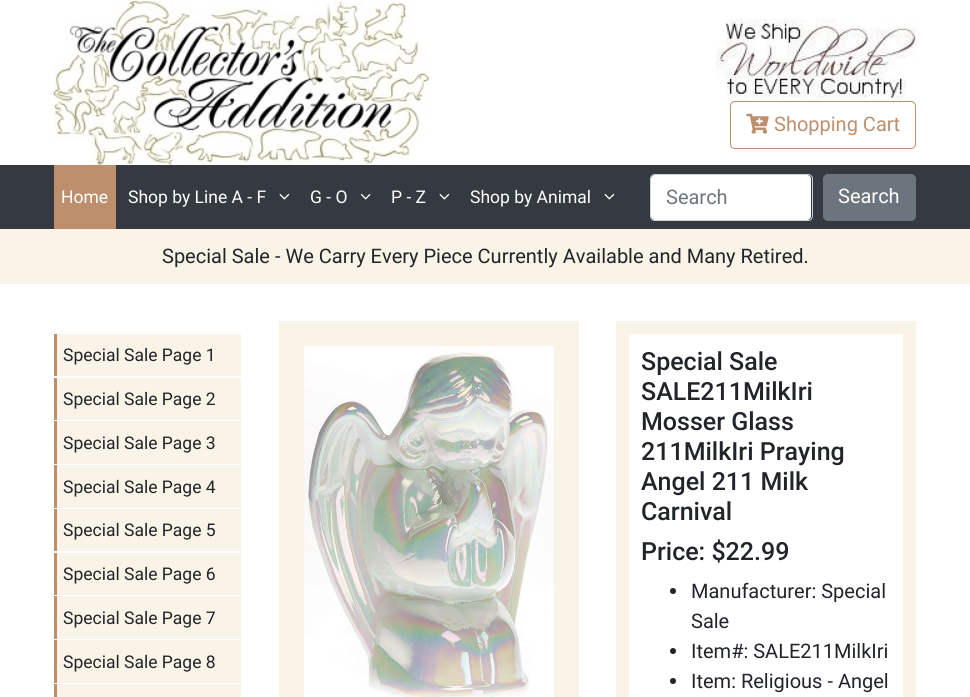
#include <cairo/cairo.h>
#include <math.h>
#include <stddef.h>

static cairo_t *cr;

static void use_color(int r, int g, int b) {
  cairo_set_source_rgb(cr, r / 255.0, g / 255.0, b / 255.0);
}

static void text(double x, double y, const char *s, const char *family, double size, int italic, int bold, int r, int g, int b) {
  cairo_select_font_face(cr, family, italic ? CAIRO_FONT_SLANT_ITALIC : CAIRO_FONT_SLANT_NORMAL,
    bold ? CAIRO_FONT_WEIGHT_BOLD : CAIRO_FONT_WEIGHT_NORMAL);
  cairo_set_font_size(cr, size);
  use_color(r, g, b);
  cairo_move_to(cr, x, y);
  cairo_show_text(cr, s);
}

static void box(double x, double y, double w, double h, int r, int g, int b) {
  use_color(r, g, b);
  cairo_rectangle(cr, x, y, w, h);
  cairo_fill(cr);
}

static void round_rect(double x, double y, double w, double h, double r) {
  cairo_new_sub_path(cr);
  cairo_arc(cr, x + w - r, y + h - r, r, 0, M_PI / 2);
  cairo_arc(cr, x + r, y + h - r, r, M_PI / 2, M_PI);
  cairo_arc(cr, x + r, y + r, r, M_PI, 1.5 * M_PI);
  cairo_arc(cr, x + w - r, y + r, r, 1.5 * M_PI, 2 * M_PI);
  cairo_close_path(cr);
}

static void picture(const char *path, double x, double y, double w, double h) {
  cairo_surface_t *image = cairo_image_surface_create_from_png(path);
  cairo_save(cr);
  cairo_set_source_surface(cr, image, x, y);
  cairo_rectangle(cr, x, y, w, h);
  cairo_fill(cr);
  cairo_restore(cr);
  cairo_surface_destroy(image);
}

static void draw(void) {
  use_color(255, 255, 255);
  cairo_paint(cr);
  picture("img_01.png", 53, 1, 376, 164);
  picture("img_02.png", 716, 18, 201, 81);
  round_rect(730.5, 101.5, 185, 47, 4.5);
  use_color(189, 143, 108);
  cairo_set_line_width(cr, 1);
  cairo_stroke(cr);
  picture("img_03.png", 746, 113, 23, 21);
  box(0, 165, 970, 64, 52, 58, 64);
  box(54, 165, 62, 64, 189, 143, 108);
  picture("img_04.png", 279, 193, 11, 7);
  picture("img_05.png", 360, 193, 11, 7);
  picture("img_04.png", 439, 193, 11, 7);
  picture("img_04.png", 604, 193, 11, 7);
  use_color(255, 255, 255);
  round_rect(651, 175, 160, 45, 4);
  cairo_fill(cr);
  round_rect(650.5, 174.5, 162, 46, 4.5);
  use_color(206, 212, 218);
  cairo_stroke(cr);
  use_color(108, 117, 125);
  round_rect(823.5, 174.5, 92, 46, 4.5);
  cairo_fill_preserve(cr);
  cairo_stroke(cr);
  box(0, 229, 970, 55, 250, 243, 231);
  box(57, 334, 184, 42, 250, 243, 231);
  box(54, 334, 3, 42, 189, 143, 108);
  box(57, 378, 184, 42, 250, 243, 231);
  box(54, 378, 3, 42, 189, 143, 108);
  box(57, 421, 184, 43, 250, 243, 231);
  box(54, 421, 3, 43, 189, 143, 108);
  box(57, 465, 184, 43, 250, 243, 231);
  box(54, 465, 3, 43, 189, 143, 108);
  box(57, 509, 184, 42, 250, 243, 231);
  box(54, 509, 3, 42, 189, 143, 108);
  box(57, 553, 184, 42, 250, 243, 231);
  box(54, 553, 3, 42, 189, 143, 108);
  box(57, 596, 184, 43, 250, 243, 231);
  box(54, 596, 3, 43, 189, 143, 108);
  box(57, 640, 184, 43, 250, 243, 231);
  box(54, 640, 3, 43, 189, 143, 108);
  box(57, 684, 184, 13, 250, 243, 231);
  box(54, 684, 3, 13, 189, 143, 108);
  box(279, 321, 300, 376, 250, 243, 231);
  picture("img_06.png", 303, 346, 251, 351);
  cairo_rectangle(cr, 622.5, 327.5, 287, 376);
  cairo_set_line_width(cr, 13);
  cairo_stroke(cr);
  use_color(33, 37, 41);
  cairo_arc(cr, 673, 591, 3, 0, 2 * M_PI);
  cairo_fill(cr);
  cairo_arc(cr, 673, 651, 3, 0, 2 * M_PI);
  cairo_fill(cr);
  cairo_arc(cr, 673, 681, 3, 0, 2 * M_PI);
  cairo_fill(cr);
  text(774, 131, "Shopping Cart", "Roboto", 20, 0, 0, 189, 143, 108);
  text(61, 203, "Home", "Roboto", 17.5, 0, 0, 255, 255, 255);
  text(128, 203, "Shop by Line A - F", "Roboto", 17.5, 0, 0, 255, 255, 255);
  text(310, 203, "G - O", "Roboto", 17.5, 0, 0, 255, 255, 255);
  text(391, 203, "P - Z", "Roboto", 17.5, 0, 0, 255, 255, 255);
  text(470, 203, "Shop by Animal", "Roboto", 17.5, 0, 0, 255, 255, 255);
  text(666, 204, "Search", "Roboto", 20, 0, 0, 108, 117, 125);
  text(838, 203, "Search", "Roboto", 20, 0, 0, 255, 255, 255);
  text(162, 263, "Special Sale - We Carry Every Piece Currently Available and Many Retired.", "Roboto", 20, 0, 0, 33, 37, 41);
  text(63, 361, "Special Sale Page 1", "Roboto", 17.5, 0, 0, 33, 37, 41);
  text(63, 405, "Special Sale Page 2", "Roboto", 17.5, 0, 0, 33, 37, 41);
  text(63, 449, "Special Sale Page 3", "Roboto", 17.5, 0, 0, 33, 37, 41);
  text(63, 493, "Special Sale Page 4", "Roboto", 17.5, 0, 0, 33, 37, 41);
  text(63, 536, "Special Sale Page 5", "Roboto", 17.5, 0, 0, 33, 37, 41);
  text(63, 580, "Special Sale Page 6", "Roboto", 17.5, 0, 0, 33, 37, 41);
  text(63, 624, "Special Sale Page 7", "Roboto", 17.5, 0, 0, 33, 37, 41);
  text(63, 668, "Special Sale Page 8", "Roboto", 17.5, 0, 0, 33, 37, 41);
  text(641, 370, "Special Sale", "Roboto Medium", 25, 0, 0, 33, 37, 41);
  text(641, 400, "SALE211MilkIri", "Roboto Medium", 25, 0, 0, 33, 37, 41);
  text(641, 430, "Mosser Glass", "Roboto Medium", 25, 0, 0, 33, 37, 41);
  text(641, 460, "211MilkIri Praying", "Roboto Medium", 25, 0, 0, 33, 37, 41);
  text(641, 490, "Angel 211 Milk", "Roboto Medium", 25, 0, 0, 33, 37, 41);
  text(641, 520, "Carnival", "Roboto Medium", 25, 0, 0, 33, 37, 41);
  text(641, 560, "Price: $22.99", "Roboto Medium", 25, 0, 0, 33, 37, 41);
  text(691, 598, "Manufacturer: Special", "Roboto", 20, 0, 0, 33, 37, 41);
  text(691, 628, "Sale", "Roboto", 20, 0, 0, 33, 37, 41);
  text(691, 658, "Item#: SALE211MilkIri", "Roboto", 20, 0, 0, 33, 37, 41);
  text(691, 688, "Item: Religious - Angel", "Roboto", 20, 0, 0, 33, 37, 41);
}

int main(void) {
  cairo_surface_t *surface = cairo_image_surface_create(CAIRO_FORMAT_RGB24, 970, 697);
  cr = cairo_create(surface);
  cairo_font_options_t *options = cairo_font_options_create();
  cairo_font_options_set_hint_metrics(options, CAIRO_HINT_METRICS_OFF);
  cairo_font_options_set_hint_style(options, CAIRO_HINT_STYLE_NONE);
  cairo_set_font_options(cr, options);
  cairo_set_miter_limit(cr, 4);
  draw();
  cairo_surface_write_to_png(surface, "out.png");
  cairo_font_options_destroy(options);
  cairo_destroy(cr);
  cairo_surface_destroy(surface);
  return 0;
}
